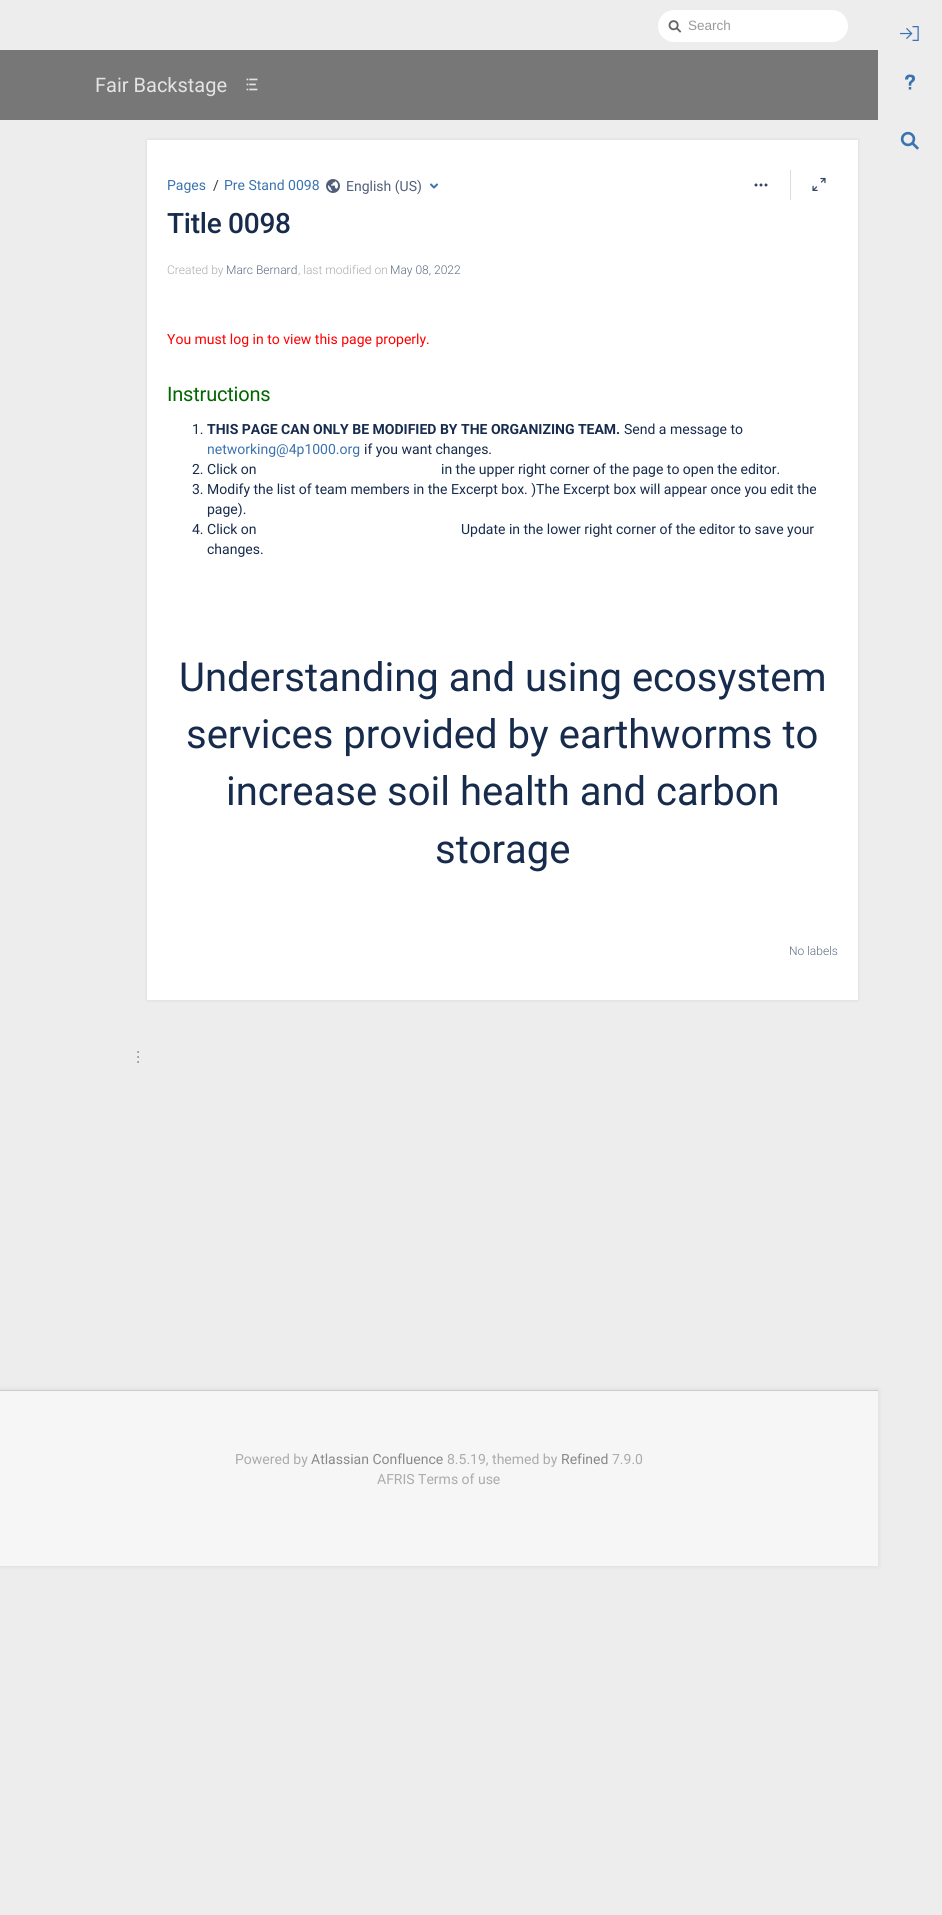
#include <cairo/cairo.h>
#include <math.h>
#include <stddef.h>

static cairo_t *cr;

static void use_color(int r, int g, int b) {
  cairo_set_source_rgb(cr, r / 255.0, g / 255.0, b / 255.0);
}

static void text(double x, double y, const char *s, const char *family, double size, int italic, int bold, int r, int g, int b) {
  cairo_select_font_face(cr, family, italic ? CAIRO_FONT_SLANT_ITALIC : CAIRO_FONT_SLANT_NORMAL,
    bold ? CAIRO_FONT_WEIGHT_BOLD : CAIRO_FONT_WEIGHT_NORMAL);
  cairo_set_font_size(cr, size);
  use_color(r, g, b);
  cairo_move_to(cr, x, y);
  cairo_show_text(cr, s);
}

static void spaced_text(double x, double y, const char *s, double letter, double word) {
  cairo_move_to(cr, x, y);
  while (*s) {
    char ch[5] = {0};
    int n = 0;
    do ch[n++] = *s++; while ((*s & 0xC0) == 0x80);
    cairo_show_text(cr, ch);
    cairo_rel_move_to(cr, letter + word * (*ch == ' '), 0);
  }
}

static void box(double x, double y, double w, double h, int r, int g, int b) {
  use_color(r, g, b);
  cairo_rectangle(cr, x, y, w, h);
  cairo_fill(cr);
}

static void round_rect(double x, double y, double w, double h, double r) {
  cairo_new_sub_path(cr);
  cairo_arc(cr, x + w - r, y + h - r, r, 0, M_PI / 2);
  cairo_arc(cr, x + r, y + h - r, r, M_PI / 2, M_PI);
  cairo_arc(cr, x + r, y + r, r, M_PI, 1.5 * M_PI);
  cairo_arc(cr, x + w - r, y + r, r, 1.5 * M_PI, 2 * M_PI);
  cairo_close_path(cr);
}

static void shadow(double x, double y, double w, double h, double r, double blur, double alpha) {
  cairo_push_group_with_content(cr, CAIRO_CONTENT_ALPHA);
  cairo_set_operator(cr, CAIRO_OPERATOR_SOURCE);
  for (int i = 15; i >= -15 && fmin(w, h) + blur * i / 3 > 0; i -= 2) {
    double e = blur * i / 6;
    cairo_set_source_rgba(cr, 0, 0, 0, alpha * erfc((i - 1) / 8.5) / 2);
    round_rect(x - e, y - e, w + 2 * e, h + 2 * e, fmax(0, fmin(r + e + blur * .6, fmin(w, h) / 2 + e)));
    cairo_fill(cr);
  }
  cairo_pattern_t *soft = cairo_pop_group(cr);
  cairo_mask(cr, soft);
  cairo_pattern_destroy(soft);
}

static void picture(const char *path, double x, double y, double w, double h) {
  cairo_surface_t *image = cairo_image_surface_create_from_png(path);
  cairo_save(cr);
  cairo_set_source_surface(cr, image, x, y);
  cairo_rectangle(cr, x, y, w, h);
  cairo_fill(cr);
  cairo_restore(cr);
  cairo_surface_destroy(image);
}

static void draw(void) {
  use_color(237, 237, 237);
  cairo_paint(cr);
  use_color(255, 255, 255);
  round_rect(658, 10, 190, 32, 16);
  cairo_fill(cr);
  picture("img_01.png", 668, 20, 14, 13);
  box(0, 50, 878, 70, 119, 119, 119);
  picture("img_02.png", 246, 78, 12, 13);
  use_color(0, 0, 0);
  shadow(147, 140, 711, 860, 0, 1.5, 0.1);
  box(147, 140, 711, 860, 255, 255, 255);
  picture("img_03.png", 326, 179, 14, 14);
  picture("img_04.png", 430, 183, 8, 6);
  picture("img_05.png", 754, 183, 14, 4);
  box(790, 170, 1, 30, 221, 221, 221);
  picture("img_06.png", 812, 177, 14, 14);
  picture("img_07.png", 137, 1051, 2, 12);
  use_color(0, 0, 0);
  shadow(0, 1390, 878, 176, 0, 2.5, 0.1);
  box(0, 1391, 878, 175, 246, 246, 246);
  box(0, 1390, 878, 1, 204, 204, 204);
  picture("img_08.png", 900, 26, 19, 15);
  picture("img_09.png", 905, 74, 10, 16);
  picture("img_10.png", 900, 131, 19, 19);
  text(688, 30, "Search", "Liberation Sans", 13.5, 0, 0, 153, 153, 153);
  text(95, 92, "Fair Backstage", "Roboto", 20, 0, 0, 228, 228, 228);
  text(167, 190, "Pages", "Roboto", 14, 0, 0, 59, 115, 175);
  text(213, 190, "/", "Roboto", 14, 0, 0, 51, 51, 51);
  text(224, 190, "Pre Stand 0098", "Roboto", 14, 0, 0, 59, 115, 175);
  text(346, 191, "English (US)", "Roboto", 14, 0, 0, 80, 95, 121);
  cairo_select_font_face(cr, "Roboto Medium", CAIRO_FONT_SLANT_NORMAL, CAIRO_FONT_WEIGHT_NORMAL);
  cairo_set_font_size(cr, 28);
  use_color(23, 43, 77);
  spaced_text(167, 233, "Title 0098", -0.25, 0);
  text(167, 274, "Created by", "Roboto Light", 12, 0, 0, 171, 171, 171);
  text(226, 274, "Marc Bernard", "Roboto Light", 12, 0, 0, 94, 108, 132);
  text(298, 274, ", last modified on", "Roboto Light", 12, 0, 0, 171, 171, 171);
  text(390, 274, "May 08, 2022", "Roboto Light", 12, 0, 0, 94, 108, 132);
  text(167, 344, "You must log in to view this page properly.", "Roboto", 14, 0, 0, 255, 0, 0);
  cairo_set_font_size(cr, 20);
  use_color(0, 102, 0);
  spaced_text(167, 401, "Instructions", -0.2, 0);
  text(192, 434, "1.", "Roboto", 14, 0, 0, 23, 43, 77);
  text(207, 434, "THIS PAGE CAN ONLY BE MODIFIED BY THE ORGANIZING TEAM.", "Roboto", 14, 0, 1, 23, 43, 77);
  text(624, 434, "Send a message to", "Roboto", 14, 0, 0, 23, 43, 77);
  text(207, 454, "networking@4p1000.org", "Roboto", 14, 0, 0, 59, 115, 175);
  text(364, 454, "if you want changes.", "Roboto", 14, 0, 0, 23, 43, 77);
  text(192, 474, "2. Click on", "Roboto", 14, 0, 0, 23, 43, 77);
  text(441, 474, "in the upper right corner of the page to open the editor.", "Roboto", 14, 0, 0, 23, 43, 77);
  text(192, 494, "3. Modify the list of team members in the Excerpt box. )The Excerpt box will appear once you edit the", "Roboto", 14, 0, 0, 23, 43, 77);
  text(207, 514, "page).", "Roboto", 14, 0, 0, 23, 43, 77);
  text(192, 534, "4. Click on", "Roboto", 14, 0, 0, 23, 43, 77);
  text(461, 534, "Update in the lower right corner of the editor to save your", "Roboto", 14, 0, 0, 23, 43, 77);
  text(207, 554, "changes.", "Roboto", 14, 0, 0, 23, 43, 77);
  text(179, 691, "Understanding and using ecosystem", "Roboto", 40, 0, 0, 23, 43, 77);
  text(186, 748, "services provided by earthworms to", "Roboto", 40, 0, 0, 23, 43, 77);
  text(226, 805, "increase soil health and carbon", "Roboto", 40, 0, 0, 23, 43, 77);
  text(435, 863, "storage", "Roboto", 40, 0, 0, 23, 43, 77);
  text(789, 955, "No labels", "Roboto Light", 12, 0, 0, 94, 108, 132);
  text(235, 1464, "Powered by", "Roboto", 14, 0, 0, 171, 171, 171);
  text(311, 1464, "Atlassian Confluence", "Roboto", 14, 0, 0, 136, 136, 136);
  text(447, 1464, "8.5.19, themed by", "Roboto", 14, 0, 0, 171, 171, 171);
  text(561, 1464, "Refined", "Roboto", 14, 0, 0, 136, 136, 136);
  text(612, 1464, "7.9.0", "Roboto", 14, 0, 0, 171, 171, 171);
  text(377, 1484, "AFRIS Terms of use", "Roboto", 14, 0, 0, 171, 171, 171);
}

int main(void) {
  cairo_surface_t *surface = cairo_image_surface_create(CAIRO_FORMAT_RGB24, 942, 1915);
  cr = cairo_create(surface);
  cairo_font_options_t *options = cairo_font_options_create();
  cairo_font_options_set_hint_metrics(options, CAIRO_HINT_METRICS_OFF);
  cairo_font_options_set_hint_style(options, CAIRO_HINT_STYLE_NONE);
  cairo_set_font_options(cr, options);
  cairo_set_miter_limit(cr, 4);
  draw();
  cairo_surface_write_to_png(surface, "out.png");
  cairo_font_options_destroy(options);
  cairo_destroy(cr);
  cairo_surface_destroy(surface);
  return 0;
}
